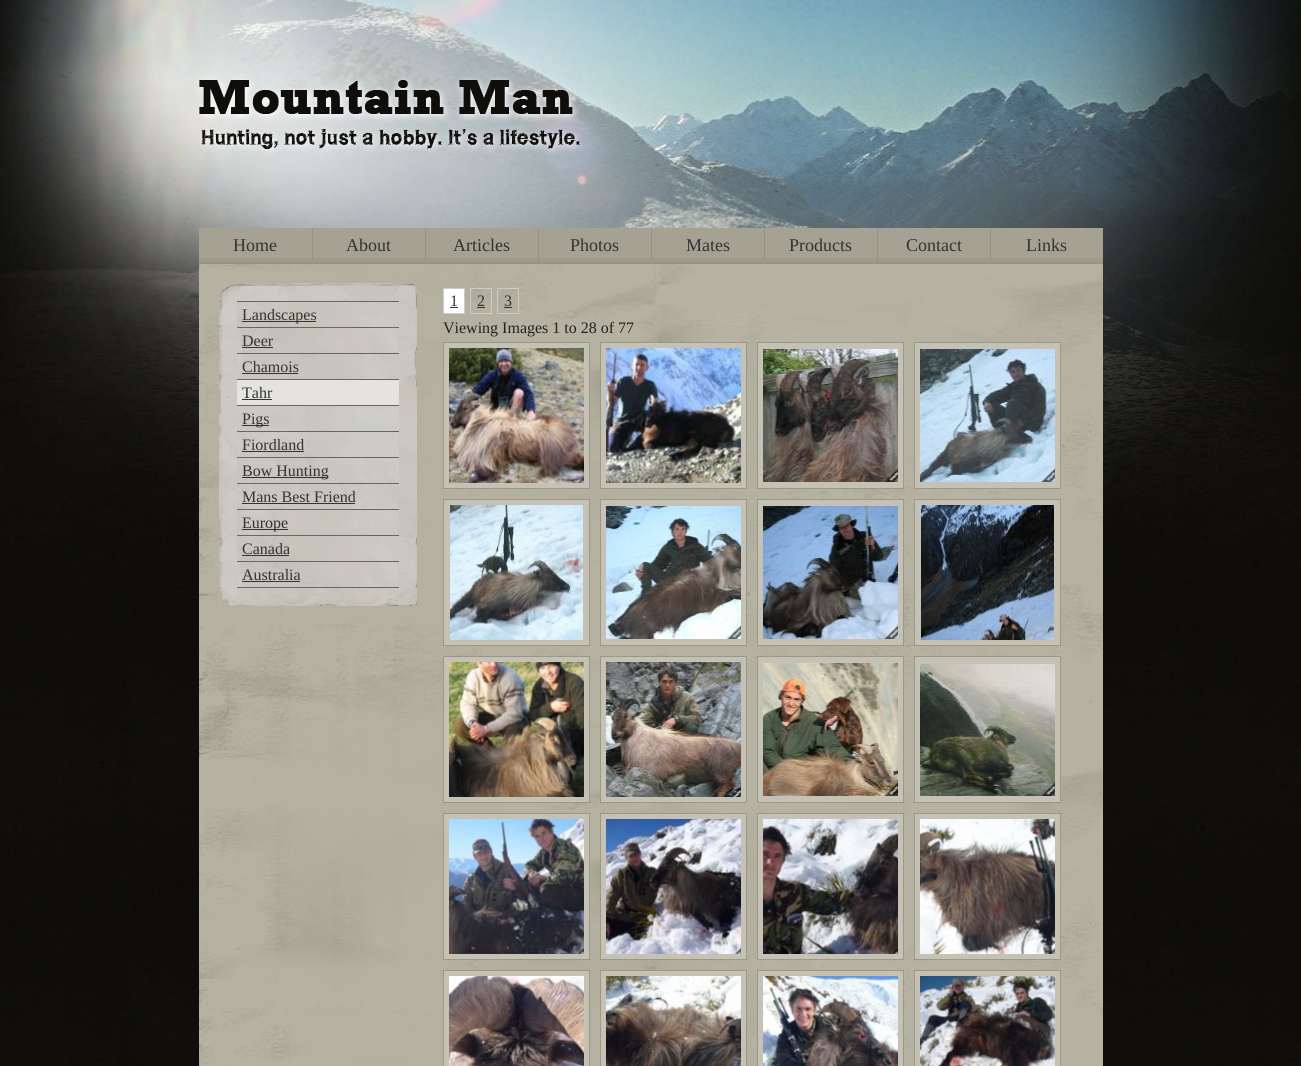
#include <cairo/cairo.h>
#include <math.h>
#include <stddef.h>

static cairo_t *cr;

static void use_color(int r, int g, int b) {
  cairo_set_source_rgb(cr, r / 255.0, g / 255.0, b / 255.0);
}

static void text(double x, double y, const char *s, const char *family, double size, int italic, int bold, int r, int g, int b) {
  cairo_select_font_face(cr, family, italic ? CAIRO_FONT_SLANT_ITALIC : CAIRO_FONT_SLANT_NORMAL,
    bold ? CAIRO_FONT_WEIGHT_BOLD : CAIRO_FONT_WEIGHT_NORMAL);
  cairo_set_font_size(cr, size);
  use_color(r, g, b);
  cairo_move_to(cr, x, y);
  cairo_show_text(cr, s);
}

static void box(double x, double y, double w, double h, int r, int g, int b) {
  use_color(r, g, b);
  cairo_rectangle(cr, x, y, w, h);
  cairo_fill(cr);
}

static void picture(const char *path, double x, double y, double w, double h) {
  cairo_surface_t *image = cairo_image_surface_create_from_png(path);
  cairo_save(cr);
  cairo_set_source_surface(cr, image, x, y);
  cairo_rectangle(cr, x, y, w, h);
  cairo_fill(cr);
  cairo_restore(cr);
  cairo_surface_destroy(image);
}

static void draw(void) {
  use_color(255, 255, 255);
  cairo_paint(cr);
  picture("img_01.png", 0, 586, 1301, 480);
  picture("img_02.png", 0, 0, 1301, 586);
  picture("img_03.png", 199, 80, 381, 69);
  box(199, 228, 904, 30, 165, 162, 147);
  picture("img_04.png", 199, 258, 113, 5);
  box(199, 263, 904, 1, 150, 146, 133);
  picture("img_05.png", 313, 258, 112, 5);
  box(312, 228, 1, 36, 150, 146, 133);
  picture("img_05.png", 426, 258, 112, 5);
  box(425, 228, 1, 36, 150, 146, 133);
  picture("img_05.png", 539, 258, 112, 5);
  box(538, 228, 1, 36, 150, 146, 133);
  picture("img_05.png", 652, 258, 112, 5);
  box(651, 228, 1, 36, 150, 146, 133);
  picture("img_05.png", 765, 258, 112, 5);
  box(764, 228, 1, 36, 150, 146, 133);
  picture("img_05.png", 878, 258, 112, 5);
  box(877, 228, 1, 36, 150, 146, 133);
  picture("img_05.png", 991, 258, 112, 5);
  box(990, 228, 1, 36, 150, 146, 133);
  picture("img_06.png", 199, 264, 904, 802);
  picture("img_07.png", 219, 283, 18, 18);
  picture("img_08.png", 237, 283, 162, 18);
  picture("img_09.png", 399, 284, 18, 17);
  picture("img_10.png", 219, 301, 18, 287);
  picture("img_11.png", 237, 302, 162, 285);
  box(237, 587, 162, 1, 102, 102, 102);
  box(237, 301, 162, 1, 102, 102, 102);
  box(242, 321, 74, 1, 51, 51, 51);
  box(237, 327, 162, 1, 102, 102, 102);
  box(242, 347, 31, 1, 51, 51, 51);
  box(237, 353, 162, 1, 102, 102, 102);
  box(242, 373, 56, 1, 51, 51, 51);
  box(237, 380, 162, 25, 228, 227, 224);
  box(237, 379, 162, 1, 102, 102, 102);
  box(242, 399, 30, 1, 51, 51, 51);
  box(237, 405, 162, 1, 102, 102, 102);
  box(242, 425, 27, 1, 51, 51, 51);
  box(237, 431, 162, 1, 102, 102, 102);
  box(242, 451, 62, 1, 51, 51, 51);
  box(237, 457, 162, 1, 102, 102, 102);
  box(242, 477, 86, 1, 51, 51, 51);
  box(237, 483, 162, 1, 102, 102, 102);
  box(242, 503, 113, 1, 51, 51, 51);
  box(237, 509, 162, 1, 102, 102, 102);
  box(242, 529, 46, 1, 51, 51, 51);
  box(237, 535, 162, 1, 102, 102, 102);
  box(242, 555, 47, 1, 51, 51, 51);
  box(237, 561, 162, 1, 102, 102, 102);
  box(242, 581, 58, 1, 51, 51, 51);
  picture("img_12.png", 399, 301, 18, 287);
  picture("img_13.png", 220, 588, 17, 18);
  picture("img_14.png", 237, 588, 162, 18);
  picture("img_15.png", 399, 588, 18, 18);
  use_color(255, 255, 255);
  cairo_rectangle(cr, 443.5, 288.5, 21, 25);
  cairo_fill_preserve(cr);
  use_color(204, 204, 204);
  cairo_set_line_width(cr, 1);
  cairo_stroke(cr);
  box(450, 307, 8, 1, 51, 51, 51);
  cairo_rectangle(cr, 470.5, 288.5, 21, 25);
  use_color(204, 204, 204);
  cairo_stroke(cr);
  box(477, 307, 8, 1, 51, 51, 51);
  cairo_rectangle(cr, 497.5, 288.5, 21, 25);
  use_color(204, 204, 204);
  cairo_stroke(cr);
  box(504, 307, 8, 1, 51, 51, 51);
  use_color(197, 193, 180);
  cairo_rectangle(cr, 443.5, 342.5, 146, 146);
  cairo_fill_preserve(cr);
  use_color(155, 151, 137);
  cairo_stroke(cr);
  picture("img_16.png", 449, 348, 135, 135);
  use_color(197, 193, 180);
  cairo_rectangle(cr, 600.5, 342.5, 146, 146);
  cairo_fill_preserve(cr);
  use_color(155, 151, 137);
  cairo_stroke(cr);
  picture("img_17.png", 606, 348, 135, 135);
  use_color(197, 193, 180);
  cairo_rectangle(cr, 757.5, 342.5, 146, 146);
  cairo_fill_preserve(cr);
  use_color(155, 151, 137);
  cairo_stroke(cr);
  picture("img_18.png", 763, 349, 135, 133);
  use_color(197, 193, 180);
  cairo_rectangle(cr, 914.5, 342.5, 146, 146);
  cairo_fill_preserve(cr);
  use_color(155, 151, 137);
  cairo_stroke(cr);
  picture("img_19.png", 920, 349, 135, 133);
  use_color(197, 193, 180);
  cairo_rectangle(cr, 443.5, 499.5, 146, 146);
  cairo_fill_preserve(cr);
  use_color(155, 151, 137);
  cairo_stroke(cr);
  picture("img_20.png", 450, 505, 133, 135);
  use_color(197, 193, 180);
  cairo_rectangle(cr, 600.5, 499.5, 146, 146);
  cairo_fill_preserve(cr);
  use_color(155, 151, 137);
  cairo_stroke(cr);
  picture("img_21.png", 606, 506, 135, 133);
  use_color(197, 193, 180);
  cairo_rectangle(cr, 757.5, 499.5, 146, 146);
  cairo_fill_preserve(cr);
  use_color(155, 151, 137);
  cairo_stroke(cr);
  picture("img_22.png", 763, 506, 135, 133);
  use_color(197, 193, 180);
  cairo_rectangle(cr, 914.5, 499.5, 146, 146);
  cairo_fill_preserve(cr);
  use_color(155, 151, 137);
  cairo_stroke(cr);
  picture("img_23.png", 921, 505, 133, 135);
  use_color(197, 193, 180);
  cairo_rectangle(cr, 443.5, 656.5, 146, 146);
  cairo_fill_preserve(cr);
  use_color(155, 151, 137);
  cairo_stroke(cr);
  picture("img_24.png", 449, 662, 135, 135);
  use_color(197, 193, 180);
  cairo_rectangle(cr, 600.5, 656.5, 146, 146);
  cairo_fill_preserve(cr);
  use_color(155, 151, 137);
  cairo_stroke(cr);
  picture("img_25.png", 606, 662, 135, 135);
  use_color(197, 193, 180);
  cairo_rectangle(cr, 757.5, 656.5, 146, 146);
  cairo_fill_preserve(cr);
  use_color(155, 151, 137);
  cairo_stroke(cr);
  picture("img_26.png", 763, 663, 135, 133);
  use_color(197, 193, 180);
  cairo_rectangle(cr, 914.5, 656.5, 146, 146);
  cairo_fill_preserve(cr);
  use_color(155, 151, 137);
  cairo_stroke(cr);
  picture("img_27.png", 920, 664, 135, 132);
  use_color(197, 193, 180);
  cairo_rectangle(cr, 443.5, 813.5, 146, 146);
  cairo_fill_preserve(cr);
  use_color(155, 151, 137);
  cairo_stroke(cr);
  picture("img_28.png", 449, 819, 135, 135);
  use_color(197, 193, 180);
  cairo_rectangle(cr, 600.5, 813.5, 146, 146);
  cairo_fill_preserve(cr);
  use_color(155, 151, 137);
  cairo_stroke(cr);
  picture("img_29.png", 606, 819, 135, 135);
  use_color(197, 193, 180);
  cairo_rectangle(cr, 757.5, 813.5, 146, 146);
  cairo_fill_preserve(cr);
  use_color(155, 151, 137);
  cairo_stroke(cr);
  picture("img_30.png", 763, 819, 135, 135);
  use_color(197, 193, 180);
  cairo_rectangle(cr, 914.5, 813.5, 146, 146);
  cairo_fill_preserve(cr);
  use_color(155, 151, 137);
  cairo_stroke(cr);
  picture("img_31.png", 920, 819, 135, 135);
  use_color(197, 193, 180);
  cairo_rectangle(cr, 443.5, 970.5, 146, 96);
  cairo_fill_preserve(cr);
  use_color(155, 151, 137);
  cairo_stroke(cr);
  picture("img_32.png", 449, 976, 135, 90);
  use_color(197, 193, 180);
  cairo_rectangle(cr, 600.5, 970.5, 146, 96);
  cairo_fill_preserve(cr);
  use_color(155, 151, 137);
  cairo_stroke(cr);
  picture("img_33.png", 606, 976, 135, 90);
  use_color(197, 193, 180);
  cairo_rectangle(cr, 757.5, 970.5, 146, 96);
  cairo_fill_preserve(cr);
  use_color(155, 151, 137);
  cairo_stroke(cr);
  picture("img_34.png", 763, 976, 135, 90);
  use_color(197, 193, 180);
  cairo_rectangle(cr, 914.5, 970.5, 146, 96);
  cairo_fill_preserve(cr);
  use_color(155, 151, 137);
  cairo_stroke(cr);
  picture("img_35.png", 920, 976, 135, 90);
  text(233, 251, "Home", "Liberation Serif", 18, 0, 0, 51, 51, 51);
  text(346, 251, "About", "Liberation Serif", 18, 0, 0, 51, 51, 51);
  text(453, 251, "Articles", "Liberation Serif", 18, 0, 0, 51, 51, 51);
  text(570, 251, "Photos", "Liberation Serif", 18, 0, 0, 51, 51, 51);
  text(686, 251, "Mates", "Liberation Serif", 18, 0, 0, 51, 51, 51);
  text(789, 251, "Products", "Liberation Serif", 18, 0, 0, 51, 51, 51);
  text(906, 251, "Contact", "Liberation Serif", 18, 0, 0, 51, 51, 51);
  text(1026, 251, "Links", "Liberation Serif", 18, 0, 0, 51, 51, 51);
  text(242, 320, "Landscapes", "Liberation Serif", 16, 0, 0, 51, 51, 51);
  text(242, 346, "Deer", "Liberation Serif", 16, 0, 0, 51, 51, 51);
  text(242, 372, "Chamois", "Liberation Serif", 16, 0, 0, 51, 51, 51);
  text(242, 398, "Tahr", "Liberation Serif", 16, 0, 0, 51, 51, 51);
  text(242, 424, "Pigs", "Liberation Serif", 16, 0, 0, 51, 51, 51);
  text(242, 450, "Fiordland", "Liberation Serif", 16, 0, 0, 51, 51, 51);
  text(242, 476, "Bow Hunting", "Liberation Serif", 16, 0, 0, 51, 51, 51);
  text(242, 502, "Mans Best Friend", "Liberation Serif", 16, 0, 0, 51, 51, 51);
  text(242, 528, "Europe", "Liberation Serif", 16, 0, 0, 51, 51, 51);
  text(242, 554, "Canada", "Liberation Serif", 16, 0, 0, 51, 51, 51);
  text(242, 580, "Australia", "Liberation Serif", 16, 0, 0, 51, 51, 51);
  text(450, 306, "1", "Liberation Serif", 16, 0, 0, 51, 51, 51);
  text(477, 306, "2", "Liberation Serif", 16, 0, 0, 51, 51, 51);
  text(504, 306, "3", "Liberation Serif", 16, 0, 0, 51, 51, 51);
  text(443, 333, "Viewing Images 1 to 28 of 77", "Liberation Serif", 16, 0, 0, 34, 34, 34);
}

int main(void) {
  cairo_surface_t *surface = cairo_image_surface_create(CAIRO_FORMAT_RGB24, 1301, 1066);
  cr = cairo_create(surface);
  cairo_font_options_t *options = cairo_font_options_create();
  cairo_font_options_set_hint_metrics(options, CAIRO_HINT_METRICS_OFF);
  cairo_font_options_set_hint_style(options, CAIRO_HINT_STYLE_NONE);
  cairo_set_font_options(cr, options);
  cairo_set_miter_limit(cr, 4);
  draw();
  cairo_surface_write_to_png(surface, "out.png");
  cairo_font_options_destroy(options);
  cairo_destroy(cr);
  cairo_surface_destroy(surface);
  return 0;
}
